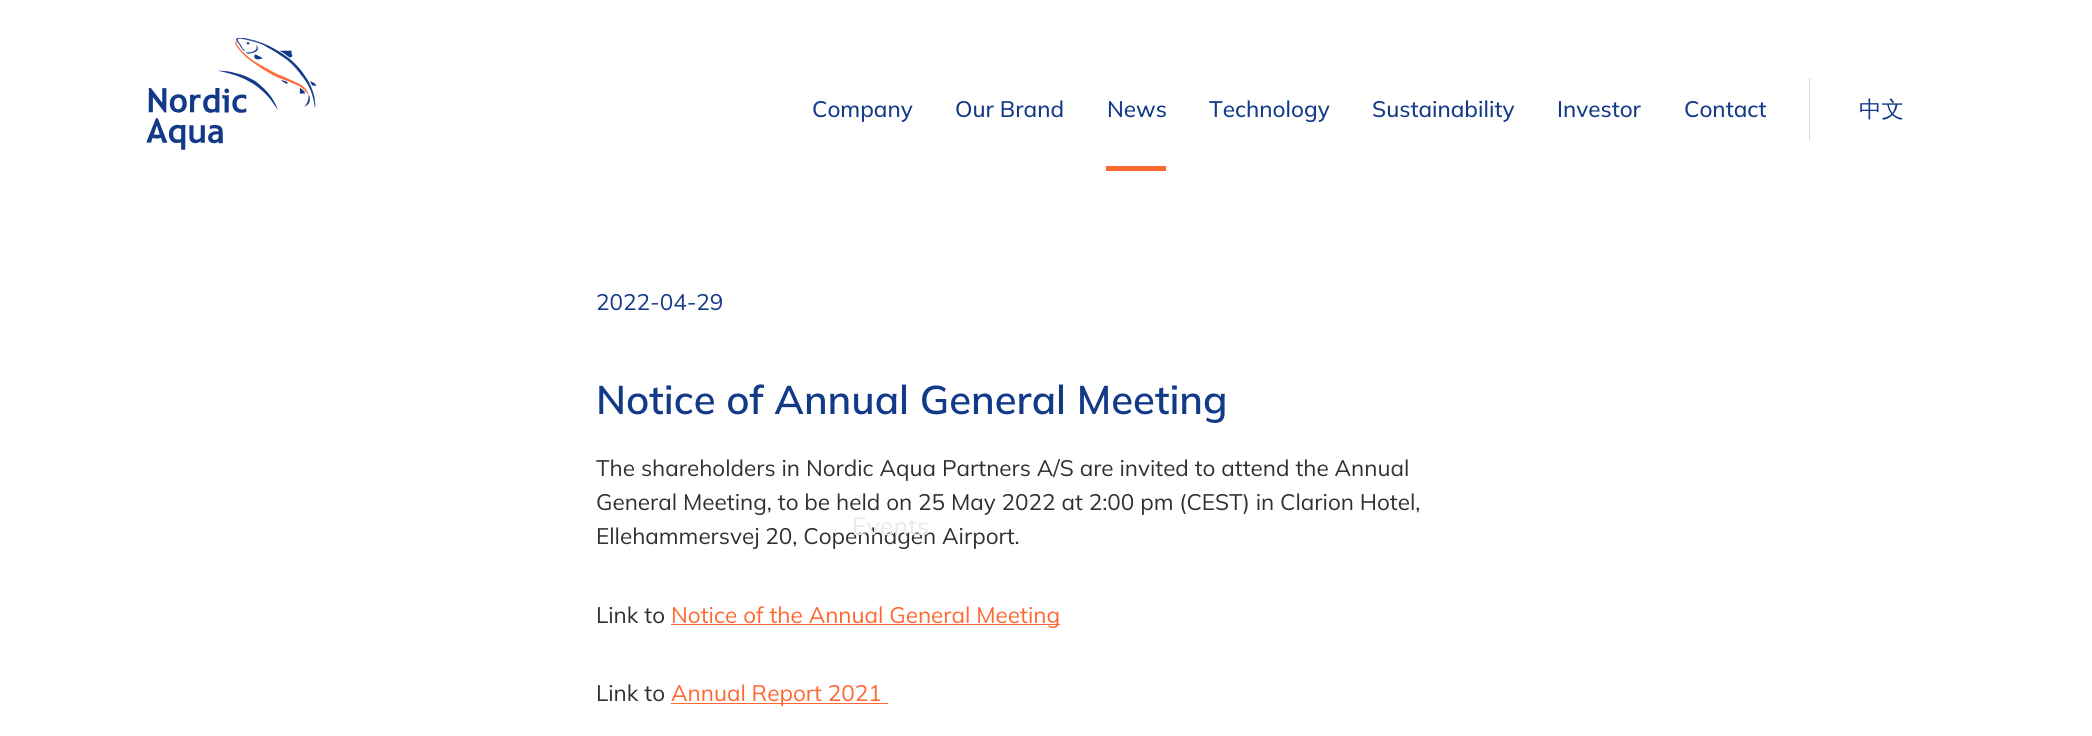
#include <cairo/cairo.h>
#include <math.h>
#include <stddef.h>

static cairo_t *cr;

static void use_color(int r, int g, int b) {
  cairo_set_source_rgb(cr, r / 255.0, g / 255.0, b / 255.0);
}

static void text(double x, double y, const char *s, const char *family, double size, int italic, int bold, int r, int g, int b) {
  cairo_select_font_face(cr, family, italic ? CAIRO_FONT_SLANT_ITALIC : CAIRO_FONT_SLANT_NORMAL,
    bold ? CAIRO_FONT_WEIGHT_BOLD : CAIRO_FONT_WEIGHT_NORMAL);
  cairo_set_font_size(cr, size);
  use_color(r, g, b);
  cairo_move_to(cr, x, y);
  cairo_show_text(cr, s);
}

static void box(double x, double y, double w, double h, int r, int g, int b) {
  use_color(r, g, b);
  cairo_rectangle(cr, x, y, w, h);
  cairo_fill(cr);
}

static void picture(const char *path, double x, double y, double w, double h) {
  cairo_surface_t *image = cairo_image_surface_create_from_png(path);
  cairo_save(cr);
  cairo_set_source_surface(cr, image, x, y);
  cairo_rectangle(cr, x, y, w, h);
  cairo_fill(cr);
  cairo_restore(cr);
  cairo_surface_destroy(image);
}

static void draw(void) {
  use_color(255, 255, 255);
  cairo_paint(cr);
  picture("img_01.png", 146, 38, 170, 112);
  box(1106, 166, 60, 5, 255, 103, 48);
  box(1809, 78, 1, 62, 216, 216, 216);
  box(671, 624, 389, 1, 255, 103, 48);
  box(671, 703, 217, 1, 255, 103, 48);
  text(812, 117, "Company", "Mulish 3 ExtraLight", 22.5, 0, 0, 19, 58, 136);
  text(955, 117, "Our Brand", "Mulish 3 ExtraLight", 22.5, 0, 0, 19, 58, 136);
  text(1107, 117, "News", "Mulish 3 ExtraLight", 22.5, 0, 0, 19, 58, 136);
  text(1209, 117, "Technology", "Mulish 3 ExtraLight", 22.5, 0, 0, 19, 58, 136);
  text(1372, 117, "Sustainability", "Mulish 3 ExtraLight", 22.5, 0, 0, 19, 58, 136);
  text(1557, 117, "Investor", "Mulish 3 ExtraLight", 22.5, 0, 0, 19, 58, 136);
  text(1684, 117, "Contact", "Mulish 3 ExtraLight", 22.5, 0, 0, 19, 58, 136);
  text(1859, 117, "中文", "WenQuanYi Zen Hei Medium", 22.5, 0, 0, 19, 58, 136);
  text(596, 310, "2022-04-29", "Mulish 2 ExtraLight", 22.5, 0, 0, 19, 58, 136);
  text(596, 414, "Notice of Annual General Meeting", "Mulish ExtraLight", 40, 0, 0, 19, 58, 136);
  text(596, 476, "The shareholders in Nordic Aqua Partners A/S are invited to attend the Annual", "Mulish 2 ExtraLight", 22.5, 0, 0, 48, 48, 48);
  text(596, 510, "General Meeting, to be held on 25 May 2022 at 2:00 pm (CEST) in Clarion Hotel,", "Mulish 2 ExtraLight", 22.5, 0, 0, 48, 48, 48);
  text(596, 544, "Ellehammersvej 20, Copenhagen Airport.", "Mulish 2 ExtraLight", 22.5, 0, 0, 48, 48, 48);
  text(852, 535, "Events", "Mulish 2 ExtraLight", 25, 0, 0, 234, 234, 234);
  text(596, 623, "Link to", "Mulish 2 ExtraLight", 22.5, 0, 0, 48, 48, 48);
  text(671, 623, "Notice of the Annual General Meeting", "Mulish 2 ExtraLight", 22.5, 0, 0, 255, 103, 48);
  text(596, 701, "Link to", "Mulish 2 ExtraLight", 22.5, 0, 0, 48, 48, 48);
  text(671, 701, "Annual Report 2021", "Mulish 2 ExtraLight", 22.5, 0, 0, 255, 103, 48);
}

int main(void) {
  cairo_surface_t *surface = cairo_image_surface_create(CAIRO_FORMAT_RGB24, 2092, 736);
  cr = cairo_create(surface);
  cairo_font_options_t *options = cairo_font_options_create();
  cairo_font_options_set_hint_metrics(options, CAIRO_HINT_METRICS_OFF);
  cairo_font_options_set_hint_style(options, CAIRO_HINT_STYLE_NONE);
  cairo_set_font_options(cr, options);
  cairo_set_miter_limit(cr, 4);
  draw();
  cairo_surface_write_to_png(surface, "out.png");
  cairo_font_options_destroy(options);
  cairo_destroy(cr);
  cairo_surface_destroy(surface);
  return 0;
}
